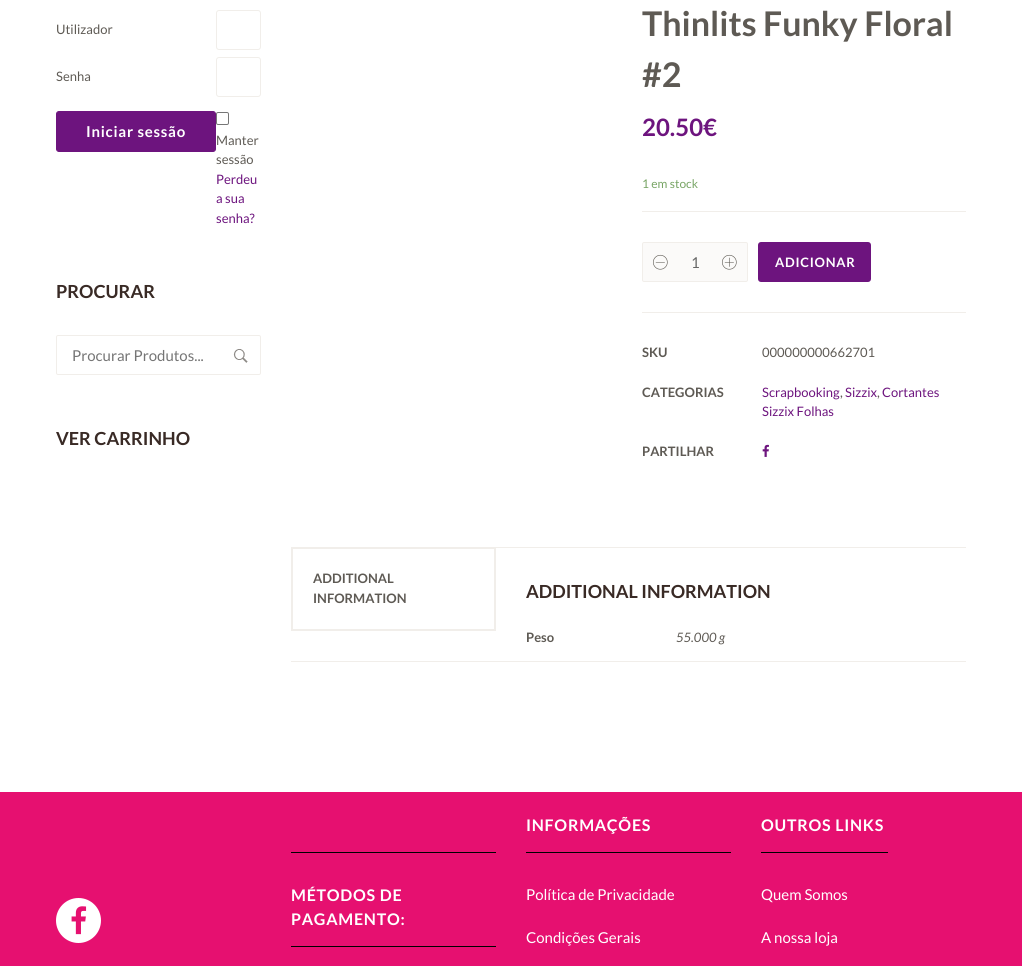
#include <cairo/cairo.h>
#include <math.h>
#include <stddef.h>

static cairo_t *cr;

static void use_color(int r, int g, int b) {
  cairo_set_source_rgb(cr, r / 255.0, g / 255.0, b / 255.0);
}

static void text(double x, double y, const char *s, const char *family, double size, int italic, int bold, int r, int g, int b) {
  cairo_select_font_face(cr, family, italic ? CAIRO_FONT_SLANT_ITALIC : CAIRO_FONT_SLANT_NORMAL,
    bold ? CAIRO_FONT_WEIGHT_BOLD : CAIRO_FONT_WEIGHT_NORMAL);
  cairo_set_font_size(cr, size);
  use_color(r, g, b);
  cairo_move_to(cr, x, y);
  cairo_show_text(cr, s);
}

static void spaced_text(double x, double y, const char *s, double letter, double word) {
  cairo_move_to(cr, x, y);
  while (*s) {
    char ch[5] = {0};
    int n = 0;
    do ch[n++] = *s++; while ((*s & 0xC0) == 0x80);
    cairo_show_text(cr, ch);
    cairo_rel_move_to(cr, letter + word * (*ch == ' '), 0);
  }
}

static void box(double x, double y, double w, double h, int r, int g, int b) {
  use_color(r, g, b);
  cairo_rectangle(cr, x, y, w, h);
  cairo_fill(cr);
}

static void round_rect(double x, double y, double w, double h, double r) {
  cairo_new_sub_path(cr);
  cairo_arc(cr, x + w - r, y + h - r, r, 0, M_PI / 2);
  cairo_arc(cr, x + r, y + h - r, r, M_PI / 2, M_PI);
  cairo_arc(cr, x + r, y + r, r, M_PI, 1.5 * M_PI);
  cairo_arc(cr, x + w - r, y + r, r, 1.5 * M_PI, 2 * M_PI);
  cairo_close_path(cr);
}

static void picture(const char *path, double x, double y, double w, double h) {
  cairo_surface_t *image = cairo_image_surface_create_from_png(path);
  cairo_save(cr);
  cairo_set_source_surface(cr, image, x, y);
  cairo_rectangle(cr, x, y, w, h);
  cairo_fill(cr);
  cairo_restore(cr);
  cairo_surface_destroy(image);
}

static void draw(void) {
  use_color(255, 255, 255);
  cairo_paint(cr);
  round_rect(216.5, 10.5, 44, 39, 2.5);
  use_color(241, 238, 234);
  cairo_set_line_width(cr, 1);
  cairo_stroke(cr);
  round_rect(216.5, 57.5, 44, 39, 2.5);
  cairo_stroke(cr);
  use_color(109, 20, 126);
  round_rect(56.5, 111.5, 159, 40, 2.5);
  cairo_fill_preserve(cr);
  cairo_stroke(cr);
  round_rect(216.5, 112.5, 12, 12, 1.5);
  use_color(118, 118, 118);
  cairo_stroke(cr);
  round_rect(56.5, 335.5, 204, 39, 1.5);
  use_color(241, 238, 234);
  cairo_stroke(cr);
  picture("img_01.png", 233, 349, 15, 14);
  box(642, 211, 324, 1, 241, 238, 234);
  use_color(251, 250, 249);
  round_rect(642.5, 242.5, 105, 39, 1.5);
  cairo_fill_preserve(cr);
  use_color(241, 238, 234);
  cairo_stroke(cr);
  picture("img_02.png", 653, 254, 15, 16);
  picture("img_03.png", 722, 254, 15, 16);
  use_color(109, 20, 126);
  round_rect(759, 243, 111, 38, 2);
  cairo_fill_preserve(cr);
  cairo_set_line_width(cr, 2);
  cairo_stroke(cr);
  box(642, 312, 324, 1, 241, 238, 234);
  picture("img_04.png", 762, 444, 7, 13);
  box(496, 547, 470, 1, 241, 238, 234);
  box(291, 661, 675, 1, 241, 238, 234);
  cairo_rectangle(cr, 292, 548, 203, 82);
  cairo_stroke(cr);
  box(0, 792, 1022, 174, 230, 16, 112);
  use_color(255, 255, 255);
  cairo_arc(cr, 78.5, 920.5, 22.5, 0, 2 * M_PI);
  cairo_fill(cr);
  picture("img_05.png", 71, 906, 16, 29);
  box(291, 852, 205, 1, 0, 0, 0);
  box(291, 946, 205, 1, 0, 0, 0);
  box(526, 852, 205, 1, 0, 0, 0);
  box(761, 852, 127, 1, 0, 0, 0);
  text(56, 34, "Utilizador", "Lato", 13, 0, 0, 94, 90, 84);
  text(56, 81, "Senha", "Lato", 13, 0, 0, 94, 90, 84);
  cairo_select_font_face(cr, "Lato", CAIRO_FONT_SLANT_NORMAL, CAIRO_FONT_WEIGHT_BOLD);
  cairo_set_font_size(cr, 15);
  use_color(255, 255, 255);
  spaced_text(86, 137, "Iniciar sessão", 0.75, 0);
  text(216, 145, "Manter", "Lato", 13, 0, 0, 94, 90, 84);
  text(216, 164, "sessão", "Lato", 13, 0, 0, 94, 90, 84);
  text(216, 184, "Perdeu", "Lato", 13, 0, 0, 109, 20, 126);
  text(216, 203, "a sua", "Lato", 13, 0, 0, 109, 20, 126);
  text(216, 223, "senha?", "Lato", 13, 0, 0, 109, 20, 126);
  text(56, 298, "PROCURAR", "Lato", 18, 0, 1, 57, 42, 37);
  text(72, 361, "Procurar Produtos...", "Lato", 15, 0, 0, 117, 117, 117);
  text(56, 445, "VER CARRINHO", "Lato", 18, 0, 1, 57, 42, 37);
  text(642, 36, "Thinlits Funky Floral", "Lato", 34, 0, 1, 94, 90, 84);
  text(642, 87, "#2", "Lato", 34, 0, 1, 94, 90, 84);
  text(642, 136, "20.50€", "Lato", 24, 0, 1, 109, 20, 126);
  text(642, 188, "1 em stock", "Lato", 12, 0, 0, 119, 164, 100);
  text(691, 268, "1", "Lato", 15, 0, 0, 102, 102, 102);
  cairo_select_font_face(cr, "Lato", CAIRO_FONT_SLANT_NORMAL, CAIRO_FONT_WEIGHT_BOLD);
  cairo_set_font_size(cr, 13);
  use_color(255, 255, 255);
  spaced_text(775, 267, "ADICIONAR", 0.75, 0);
  text(642, 357, "SKU", "Lato", 13, 0, 1, 94, 90, 84);
  text(762, 357, "000000000662701", "Lato", 13, 0, 0, 94, 90, 84);
  text(642, 397, "CATEGORIAS", "Lato", 13, 0, 1, 94, 90, 84);
  text(762, 397, "Scrapbooking", "Lato", 13, 0, 0, 109, 20, 126);
  text(840, 397, ",", "Lato", 13, 0, 0, 94, 90, 84);
  text(845, 397, "Sizzix", "Lato", 13, 0, 0, 109, 20, 126);
  text(877, 397, ",", "Lato", 13, 0, 0, 94, 90, 84);
  text(882, 397, "Cortantes", "Lato", 13, 0, 0, 109, 20, 126);
  text(762, 416, "Sizzix Folhas", "Lato", 13, 0, 0, 109, 20, 126);
  text(642, 456, "PARTILHAR", "Lato", 13, 0, 1, 94, 90, 84);
  text(313, 583, "ADDITIONAL", "Lato", 13, 0, 1, 94, 90, 84);
  text(313, 603, "INFORMATION", "Lato", 13, 0, 1, 94, 90, 84);
  text(526, 598, "ADDITIONAL INFORMATION", "Lato", 18, 0, 1, 57, 42, 37);
  text(526, 642, "Peso", "Lato", 13, 0, 1, 94, 90, 84);
  text(676, 642, "55.000 g", "Lato", 13, 1, 0, 94, 90, 84);
  cairo_select_font_face(cr, "Lato", CAIRO_FONT_SLANT_NORMAL, CAIRO_FONT_WEIGHT_BOLD);
  cairo_set_font_size(cr, 16);
  use_color(255, 255, 255);
  spaced_text(291, 901, "MÉTODOS DE", 0.75, 0);
  spaced_text(291, 925, "PAGAMENTO:", 0.75, 0);
  spaced_text(526, 831, "INFORMAÇÕES", 0.75, 0);
  text(526, 900, "Política de Privacidade", "Lato", 15, 0, 0, 255, 255, 255);
  text(526, 943, "Condições Gerais", "Lato", 15, 0, 0, 255, 255, 255);
  cairo_select_font_face(cr, "Lato", CAIRO_FONT_SLANT_NORMAL, CAIRO_FONT_WEIGHT_BOLD);
  cairo_set_font_size(cr, 16);
  spaced_text(761, 831, "OUTROS LINKS", 0.75, 0);
  text(761, 900, "Quem Somos", "Lato", 15, 0, 0, 255, 255, 255);
  text(761, 943, "A nossa loja", "Lato", 15, 0, 0, 255, 255, 255);
}

int main(void) {
  cairo_surface_t *surface = cairo_image_surface_create(CAIRO_FORMAT_RGB24, 1022, 966);
  cr = cairo_create(surface);
  cairo_font_options_t *options = cairo_font_options_create();
  cairo_font_options_set_hint_metrics(options, CAIRO_HINT_METRICS_OFF);
  cairo_font_options_set_hint_style(options, CAIRO_HINT_STYLE_NONE);
  cairo_set_font_options(cr, options);
  cairo_set_miter_limit(cr, 4);
  draw();
  cairo_surface_write_to_png(surface, "out.png");
  cairo_font_options_destroy(options);
  cairo_destroy(cr);
  cairo_surface_destroy(surface);
  return 0;
}
